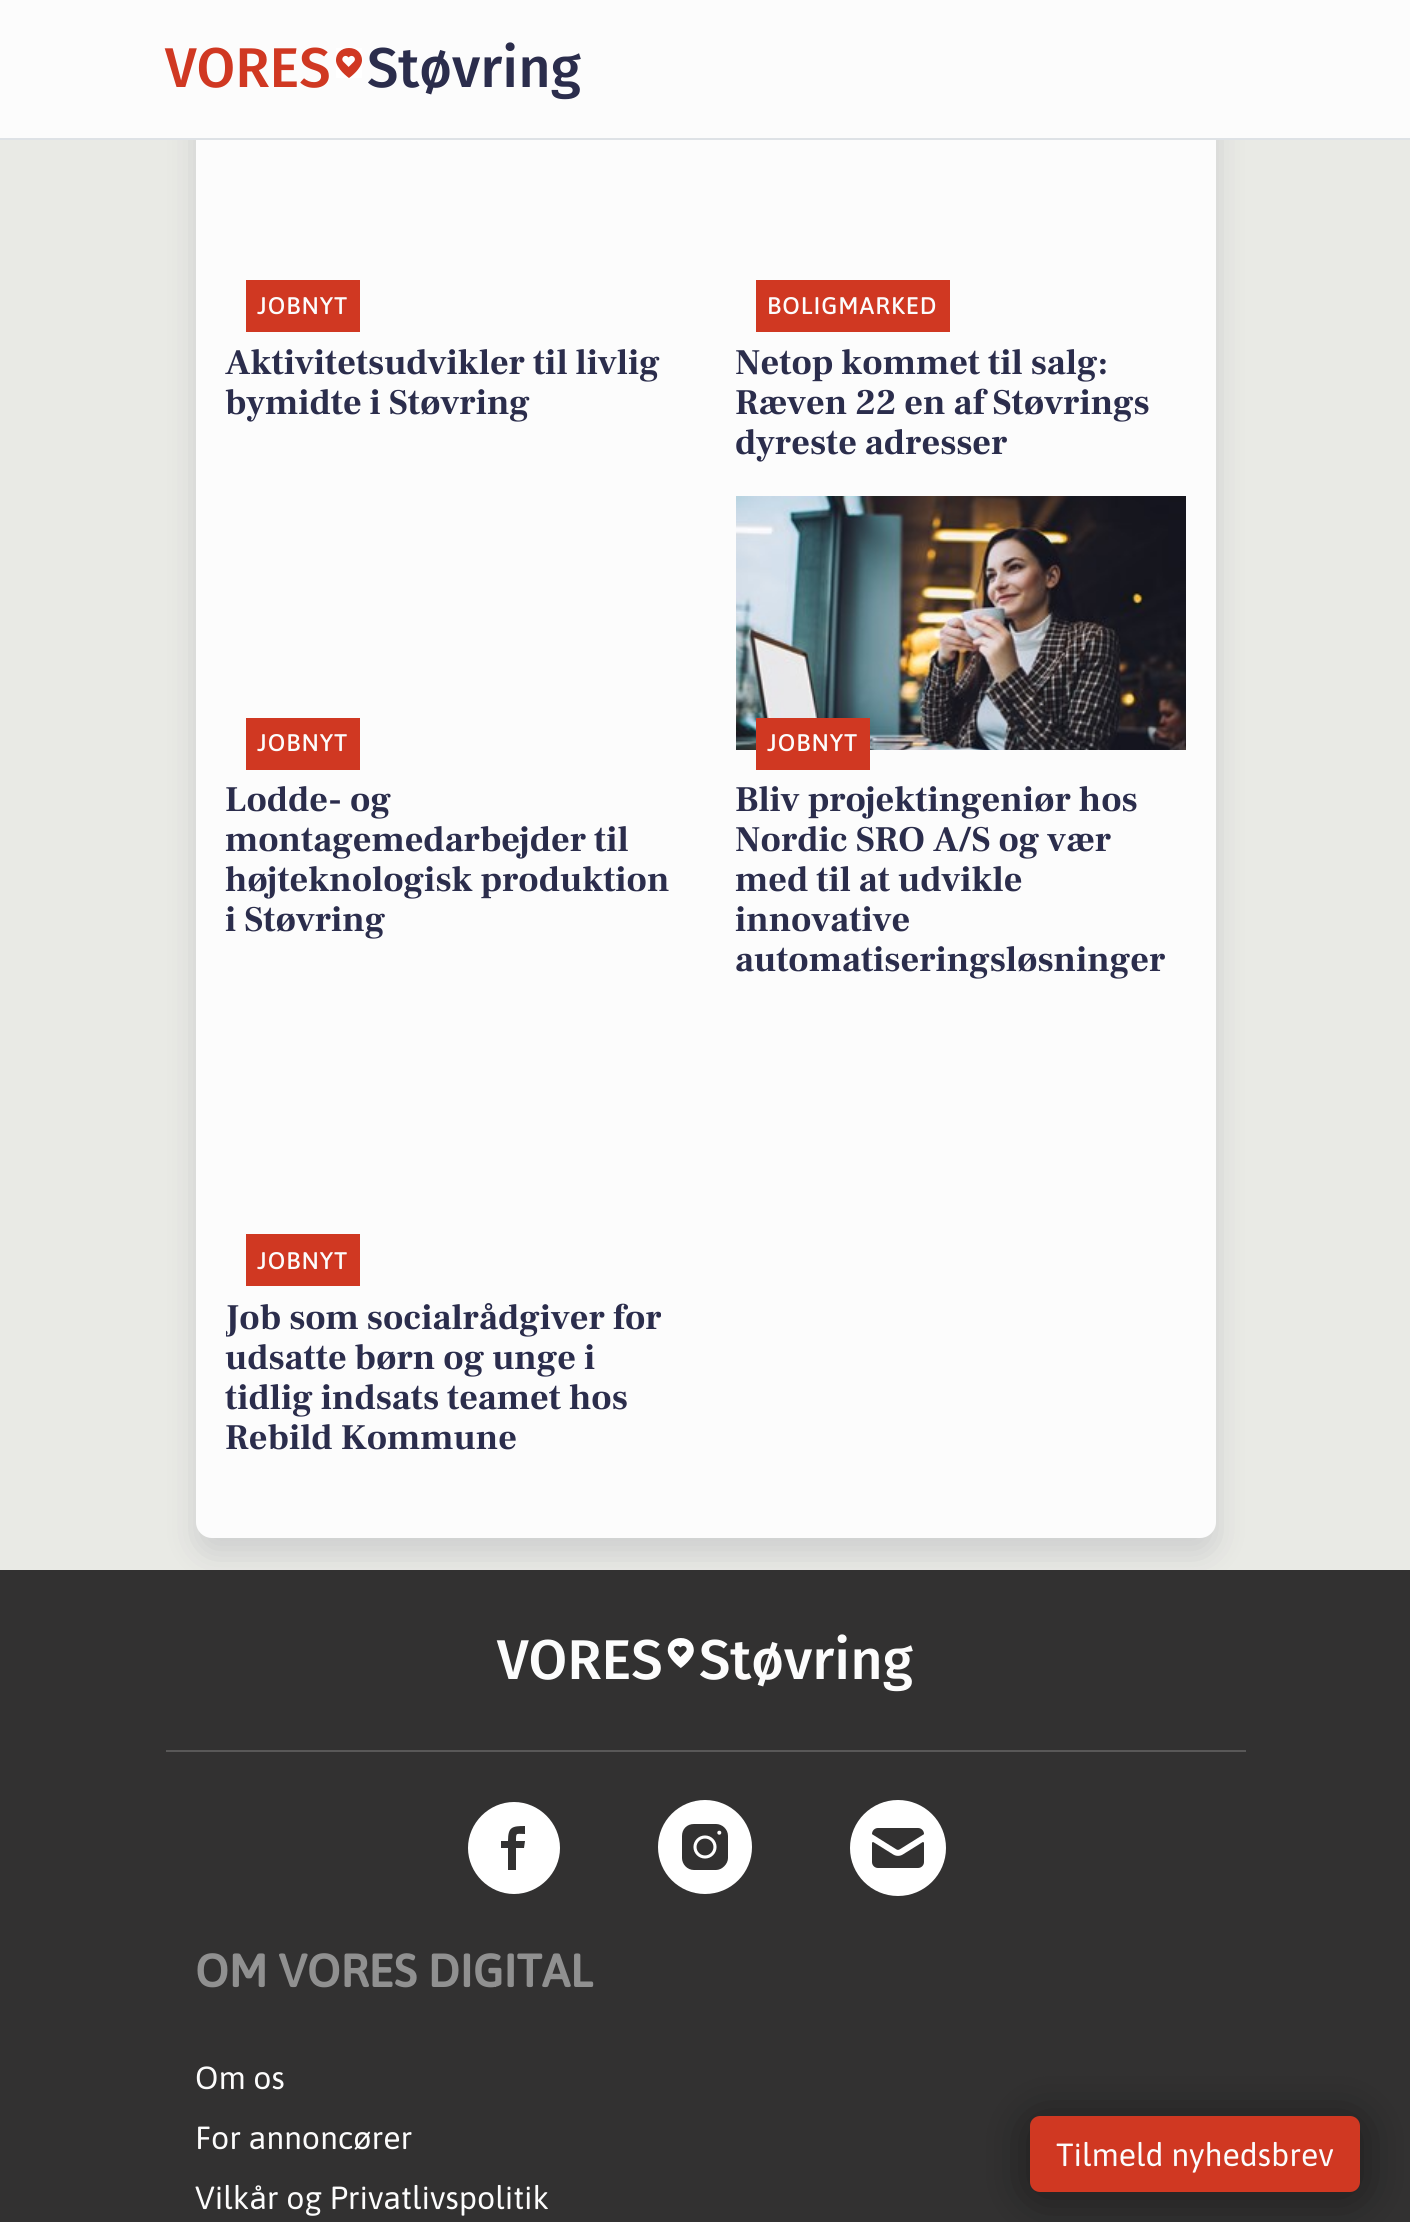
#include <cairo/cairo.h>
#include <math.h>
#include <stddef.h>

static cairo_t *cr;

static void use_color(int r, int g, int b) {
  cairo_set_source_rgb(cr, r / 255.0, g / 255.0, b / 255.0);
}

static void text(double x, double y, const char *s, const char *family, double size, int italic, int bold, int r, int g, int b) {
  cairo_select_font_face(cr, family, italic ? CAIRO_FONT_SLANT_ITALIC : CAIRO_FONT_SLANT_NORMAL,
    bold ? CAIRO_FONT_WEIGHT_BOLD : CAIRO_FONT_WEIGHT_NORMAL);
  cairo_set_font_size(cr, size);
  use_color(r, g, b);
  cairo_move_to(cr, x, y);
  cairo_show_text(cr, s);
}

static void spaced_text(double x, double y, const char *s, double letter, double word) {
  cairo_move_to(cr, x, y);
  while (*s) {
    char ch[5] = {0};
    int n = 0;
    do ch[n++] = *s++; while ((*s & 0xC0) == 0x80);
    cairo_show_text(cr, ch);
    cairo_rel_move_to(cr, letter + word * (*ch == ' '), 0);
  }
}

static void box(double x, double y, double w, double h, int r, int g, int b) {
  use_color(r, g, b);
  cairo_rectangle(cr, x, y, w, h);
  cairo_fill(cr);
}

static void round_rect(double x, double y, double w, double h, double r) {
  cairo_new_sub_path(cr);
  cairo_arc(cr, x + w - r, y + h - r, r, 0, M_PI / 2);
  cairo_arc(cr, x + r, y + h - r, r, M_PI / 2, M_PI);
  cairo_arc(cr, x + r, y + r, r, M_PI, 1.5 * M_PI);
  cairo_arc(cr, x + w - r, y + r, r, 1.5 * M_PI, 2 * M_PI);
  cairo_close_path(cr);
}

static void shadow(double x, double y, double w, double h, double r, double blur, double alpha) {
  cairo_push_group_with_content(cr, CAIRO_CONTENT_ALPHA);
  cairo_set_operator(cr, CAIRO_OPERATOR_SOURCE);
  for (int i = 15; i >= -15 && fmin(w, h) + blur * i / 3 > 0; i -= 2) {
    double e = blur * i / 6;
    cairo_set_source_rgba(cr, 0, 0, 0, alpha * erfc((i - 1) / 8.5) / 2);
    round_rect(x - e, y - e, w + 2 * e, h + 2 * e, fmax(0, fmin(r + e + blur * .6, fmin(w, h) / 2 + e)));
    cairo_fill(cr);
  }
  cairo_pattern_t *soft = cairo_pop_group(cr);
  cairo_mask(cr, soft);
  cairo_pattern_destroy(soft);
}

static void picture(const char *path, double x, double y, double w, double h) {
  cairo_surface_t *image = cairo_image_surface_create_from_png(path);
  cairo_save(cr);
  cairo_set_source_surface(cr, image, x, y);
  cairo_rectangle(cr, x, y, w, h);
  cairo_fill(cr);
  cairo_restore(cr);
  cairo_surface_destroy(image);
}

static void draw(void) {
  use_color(233, 234, 229);
  cairo_paint(cr);
  use_color(43, 45, 76);
  shadow(196, -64, 1020, 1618, 16, 16, 0.15);
  use_color(252, 252, 252);
  round_rect(196, -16, 1020, 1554, 16);
  cairo_fill(cr);
  box(0, 0, 1410, 138, 252, 252, 252);
  box(0, 138, 1410, 2, 222, 226, 230);
  picture("img_01.png", 336, 48, 26, 30);
  box(246, 280, 114, 52, 208, 56, 34);
  box(756, 280, 194, 52, 208, 56, 34);
  box(246, 718, 114, 52, 208, 56, 34);
  picture("img_02.png", 736, 496, 450, 254);
  box(756, 718, 114, 52, 208, 56, 34);
  box(246, 1234, 114, 52, 208, 56, 34);
  box(0, 1570, 1410, 652, 50, 49, 49);
  box(166, 1750, 1080, 2, 89, 88, 88);
  picture("img_03.png", 667, 1638, 27, 30);
  use_color(255, 255, 255);
  cairo_new_path(cr);
  cairo_move_to(cr, 514, 1802);
  cairo_curve_to(cr, 489, 1802, 468, 1823, 468, 1848);
  cairo_curve_to(cr, 468, 1873, 489, 1894, 514, 1894);
  cairo_curve_to(cr, 539, 1894, 560, 1873, 560, 1848);
  cairo_curve_to(cr, 560, 1823, 539, 1802, 514, 1802);
  cairo_close_path(cr);
  cairo_move_to(cr, 525, 1834);
  cairo_curve_to(cr, 516, 1834, 516, 1832, 516, 1841);
  cairo_line_to(cr, 525, 1841);
  cairo_line_to(cr, 524, 1848);
  cairo_line_to(cr, 516, 1848);
  cairo_line_to(cr, 516, 1870);
  cairo_line_to(cr, 508, 1870);
  cairo_line_to(cr, 508, 1848);
  cairo_line_to(cr, 501, 1848);
  cairo_line_to(cr, 501, 1841);
  cairo_line_to(cr, 508, 1841);
  cairo_curve_to(cr, 508, 1827, 512, 1826, 525, 1826);
  cairo_close_path(cr);
  cairo_fill(cr);
  cairo_new_path(cr);
  cairo_move_to(cr, 705, 1800);
  cairo_curve_to(cr, 731, 1800, 752, 1821, 752, 1847);
  cairo_curve_to(cr, 752, 1873, 731, 1894, 705, 1894);
  cairo_curve_to(cr, 679, 1894, 658, 1873, 658, 1847);
  cairo_curve_to(cr, 658, 1821, 679, 1800, 705, 1800);
  cairo_close_path(cr);
  cairo_move_to(cr, 716, 1824);
  cairo_line_to(cr, 694, 1824);
  cairo_curve_to(cr, 687, 1824, 682, 1829, 682, 1836);
  cairo_line_to(cr, 682, 1858);
  cairo_curve_to(cr, 682, 1864, 687, 1870, 694, 1870);
  cairo_line_to(cr, 716, 1870);
  cairo_curve_to(cr, 722, 1870, 728, 1864, 728, 1858);
  cairo_line_to(cr, 728, 1836);
  cairo_curve_to(cr, 728, 1829, 722, 1824, 716, 1824);
  cairo_close_path(cr);
  cairo_fill(cr);
  cairo_arc(cr, 719.3, 1832.7, 2, 0, 2 * M_PI);
  cairo_fill(cr);
  cairo_arc(cr, 705, 1847, 10, 0, 2 * M_PI);
  cairo_set_line_width(cr, 3.1);
  cairo_stroke(cr);
  picture("img_04.png", 850, 1800, 96, 96);
  use_color(0, 0, 0);
  shadow(1030, 2120, 330, 76, 10, 24, 0.45);
  use_color(208, 56, 34);
  round_rect(1031, 2117, 328, 74, 9);
  cairo_fill_preserve(cr);
  cairo_set_line_width(cr, 2);
  cairo_stroke(cr);
  text(165, 87, "VORES", "Fira Sans Medium", 56, 0, 0, 208, 56, 34);
  text(367, 87, "Støvring", "Fira Sans Medium", 56, 0, 0, 43, 45, 76);
  cairo_select_font_face(cr, "Asap Medium", CAIRO_FONT_SLANT_NORMAL, CAIRO_FONT_WEIGHT_NORMAL);
  cairo_set_font_size(cr, 24);
  use_color(252, 252, 252);
  spaced_text(257, 314, "JOBNYT", 1, 0);
  text(225, 374, "Aktivitetsudvikler til livlig", "Frank Ruhl Libre", 36, 0, 1, 43, 45, 76);
  text(225, 414, "bymidte i Støvring", "Frank Ruhl Libre", 36, 0, 1, 43, 45, 76);
  cairo_select_font_face(cr, "Asap Medium", CAIRO_FONT_SLANT_NORMAL, CAIRO_FONT_WEIGHT_NORMAL);
  cairo_set_font_size(cr, 24);
  use_color(252, 252, 252);
  spaced_text(767, 314, "BOLIGMARKED", 1, 0);
  text(735, 374, "Netop kommet til salg:", "Frank Ruhl Libre", 36, 0, 1, 43, 45, 76);
  text(735, 414, "Ræven 22 en af Støvrings", "Frank Ruhl Libre", 36, 0, 1, 43, 45, 76);
  text(735, 454, "dyreste adresser", "Frank Ruhl Libre", 36, 0, 1, 43, 45, 76);
  cairo_select_font_face(cr, "Asap Medium", CAIRO_FONT_SLANT_NORMAL, CAIRO_FONT_WEIGHT_NORMAL);
  cairo_set_font_size(cr, 24);
  use_color(252, 252, 252);
  spaced_text(257, 751, "JOBNYT", 1, 0);
  text(225, 811, "Lodde- og", "Frank Ruhl Libre", 36, 0, 1, 43, 45, 76);
  text(225, 851, "montagemedarbejder til", "Frank Ruhl Libre", 36, 0, 1, 43, 45, 76);
  text(225, 891, "højteknologisk produktion", "Frank Ruhl Libre", 36, 0, 1, 43, 45, 76);
  text(225, 931, "i Støvring", "Frank Ruhl Libre", 36, 0, 1, 43, 45, 76);
  cairo_select_font_face(cr, "Asap Medium", CAIRO_FONT_SLANT_NORMAL, CAIRO_FONT_WEIGHT_NORMAL);
  cairo_set_font_size(cr, 24);
  use_color(252, 252, 252);
  spaced_text(767, 751, "JOBNYT", 1, 0);
  text(735, 811, "Bliv projektingeniør hos", "Frank Ruhl Libre", 36, 0, 1, 43, 45, 76);
  text(735, 851, "Nordic SRO A/S og vær", "Frank Ruhl Libre", 36, 0, 1, 43, 45, 76);
  text(735, 891, "med til at udvikle", "Frank Ruhl Libre", 36, 0, 1, 43, 45, 76);
  text(735, 931, "innovative", "Frank Ruhl Libre", 36, 0, 1, 43, 45, 76);
  text(735, 971, "automatiseringsløsninger", "Frank Ruhl Libre", 36, 0, 1, 43, 45, 76);
  cairo_select_font_face(cr, "Asap Medium", CAIRO_FONT_SLANT_NORMAL, CAIRO_FONT_WEIGHT_NORMAL);
  cairo_set_font_size(cr, 24);
  use_color(252, 252, 252);
  spaced_text(257, 1269, "JOBNYT", 1, 0);
  cairo_save(cr);
  cairo_rectangle(cr, 226, 1298, 450, 160);
  cairo_clip(cr);
  text(225, 1329, "Job som socialrådgiver for", "Frank Ruhl Libre", 36, 0, 1, 43, 45, 76);
  cairo_restore(cr);
  text(225, 1369, "udsatte børn og unge i", "Frank Ruhl Libre", 36, 0, 1, 43, 45, 76);
  text(225, 1409, "tidlig indsats teamet hos", "Frank Ruhl Libre", 36, 0, 1, 43, 45, 76);
  text(225, 1449, "Rebild Kommune", "Frank Ruhl Libre", 36, 0, 1, 43, 45, 76);
  text(497, 1679, "VORES", "Fira Sans Medium", 56, 0, 0, 252, 252, 252);
  text(699, 1679, "Støvring", "Fira Sans Medium", 56, 0, 0, 252, 252, 252);
  text(195, 1987, "OM VORES DIGITAL", "Asap", 46, 0, 1, 144, 144, 144);
  text(195, 2089, "Om os", "Asap", 32, 0, 0, 252, 252, 252);
  text(195, 2149, "For annoncører", "Asap", 32, 0, 0, 252, 252, 252);
  text(195, 2209, "Vilkår og Privatlivspolitik", "Asap", 32, 0, 0, 252, 252, 252);
  text(1056, 2166, "Tilmeld nyhedsbrev", "Asap", 32, 0, 0, 252, 252, 252);
}

int main(void) {
  cairo_surface_t *surface = cairo_image_surface_create(CAIRO_FORMAT_RGB24, 1410, 2222);
  cr = cairo_create(surface);
  cairo_font_options_t *options = cairo_font_options_create();
  cairo_font_options_set_hint_metrics(options, CAIRO_HINT_METRICS_OFF);
  cairo_font_options_set_hint_style(options, CAIRO_HINT_STYLE_NONE);
  cairo_set_font_options(cr, options);
  cairo_set_miter_limit(cr, 4);
  draw();
  cairo_surface_write_to_png(surface, "out.png");
  cairo_font_options_destroy(options);
  cairo_destroy(cr);
  cairo_surface_destroy(surface);
  return 0;
}
